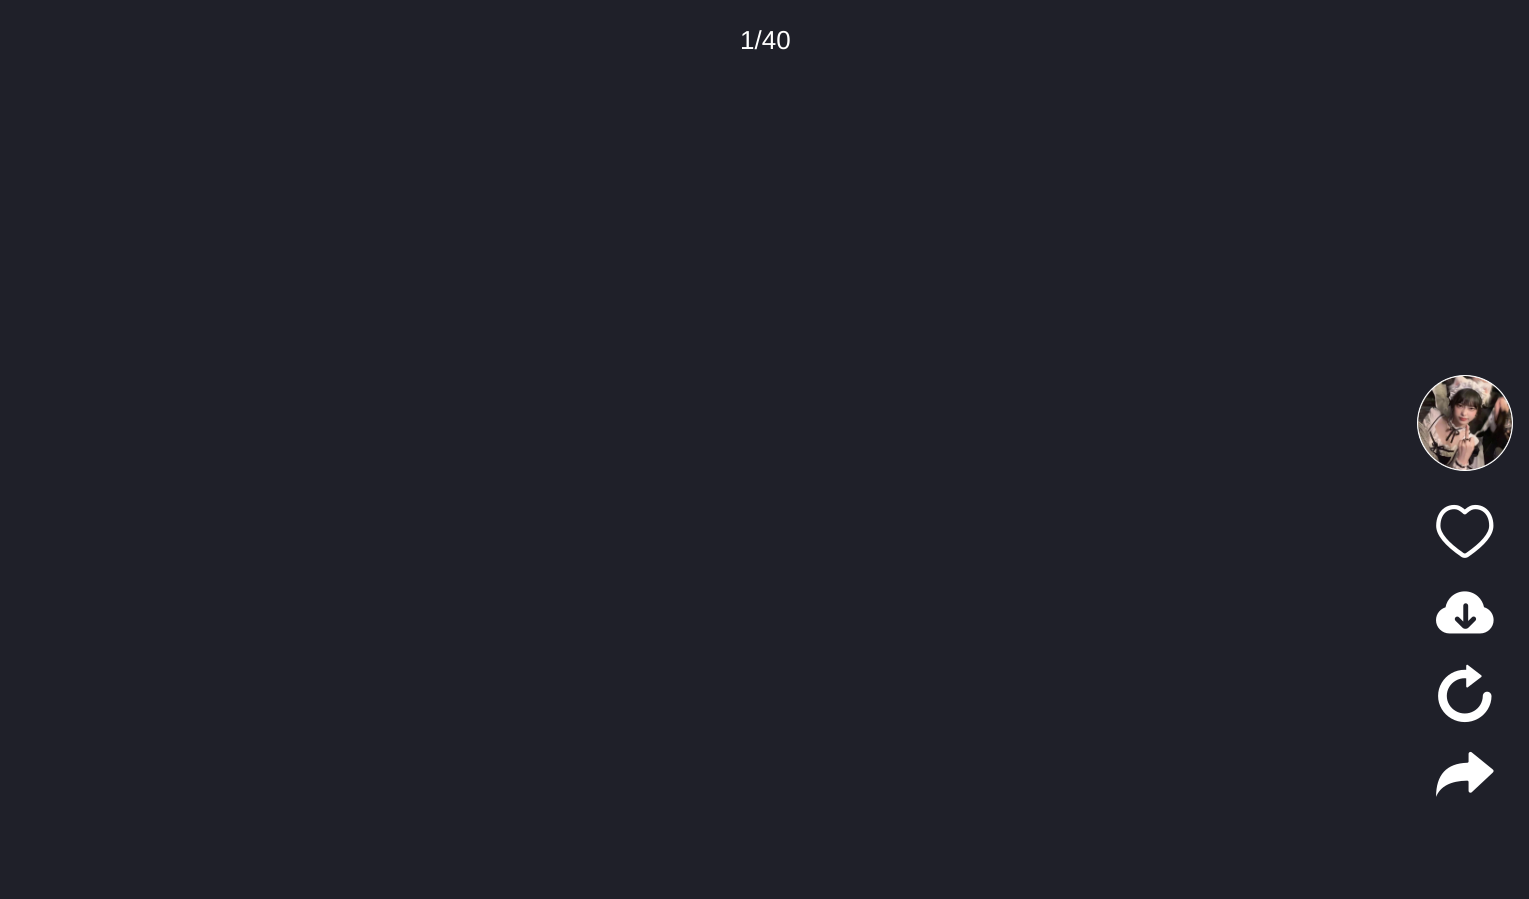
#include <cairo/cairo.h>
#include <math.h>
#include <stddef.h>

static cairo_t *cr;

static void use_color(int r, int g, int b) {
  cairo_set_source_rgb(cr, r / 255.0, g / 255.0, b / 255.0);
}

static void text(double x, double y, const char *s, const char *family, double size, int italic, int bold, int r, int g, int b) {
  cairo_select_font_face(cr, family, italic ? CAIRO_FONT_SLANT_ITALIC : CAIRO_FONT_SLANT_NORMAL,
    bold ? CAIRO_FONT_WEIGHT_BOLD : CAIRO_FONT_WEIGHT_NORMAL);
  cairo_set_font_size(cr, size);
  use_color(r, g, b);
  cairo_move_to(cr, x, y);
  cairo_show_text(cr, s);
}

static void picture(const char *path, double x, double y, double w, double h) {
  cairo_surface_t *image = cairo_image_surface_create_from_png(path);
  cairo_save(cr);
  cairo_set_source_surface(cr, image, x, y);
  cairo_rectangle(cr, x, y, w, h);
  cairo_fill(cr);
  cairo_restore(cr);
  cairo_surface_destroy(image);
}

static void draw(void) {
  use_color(31, 32, 41);
  cairo_paint(cr);
  use_color(255, 255, 255);
  cairo_arc(cr, 1465, 423, 47.5, 0, 2 * M_PI);
  cairo_fill_preserve(cr);
  cairo_set_line_width(cr, 1);
  cairo_stroke(cr);
  picture("img_01.png", 1418, 376, 94, 94);
  picture("img_02.png", 1436, 504, 58, 54);
  picture("img_03.png", 1436, 591, 58, 43);
  picture("img_04.png", 1438, 664, 54, 59);
  picture("img_05.png", 1436, 751, 58, 46);
  text(740, 49, "1/40", "Liberation Sans", 26, 0, 0, 255, 255, 255);
}

int main(void) {
  cairo_surface_t *surface = cairo_image_surface_create(CAIRO_FORMAT_RGB24, 1529, 899);
  cr = cairo_create(surface);
  cairo_font_options_t *options = cairo_font_options_create();
  cairo_font_options_set_hint_metrics(options, CAIRO_HINT_METRICS_OFF);
  cairo_font_options_set_hint_style(options, CAIRO_HINT_STYLE_NONE);
  cairo_set_font_options(cr, options);
  cairo_set_miter_limit(cr, 4);
  draw();
  cairo_surface_write_to_png(surface, "out.png");
  cairo_font_options_destroy(options);
  cairo_destroy(cr);
  cairo_surface_destroy(surface);
  return 0;
}
